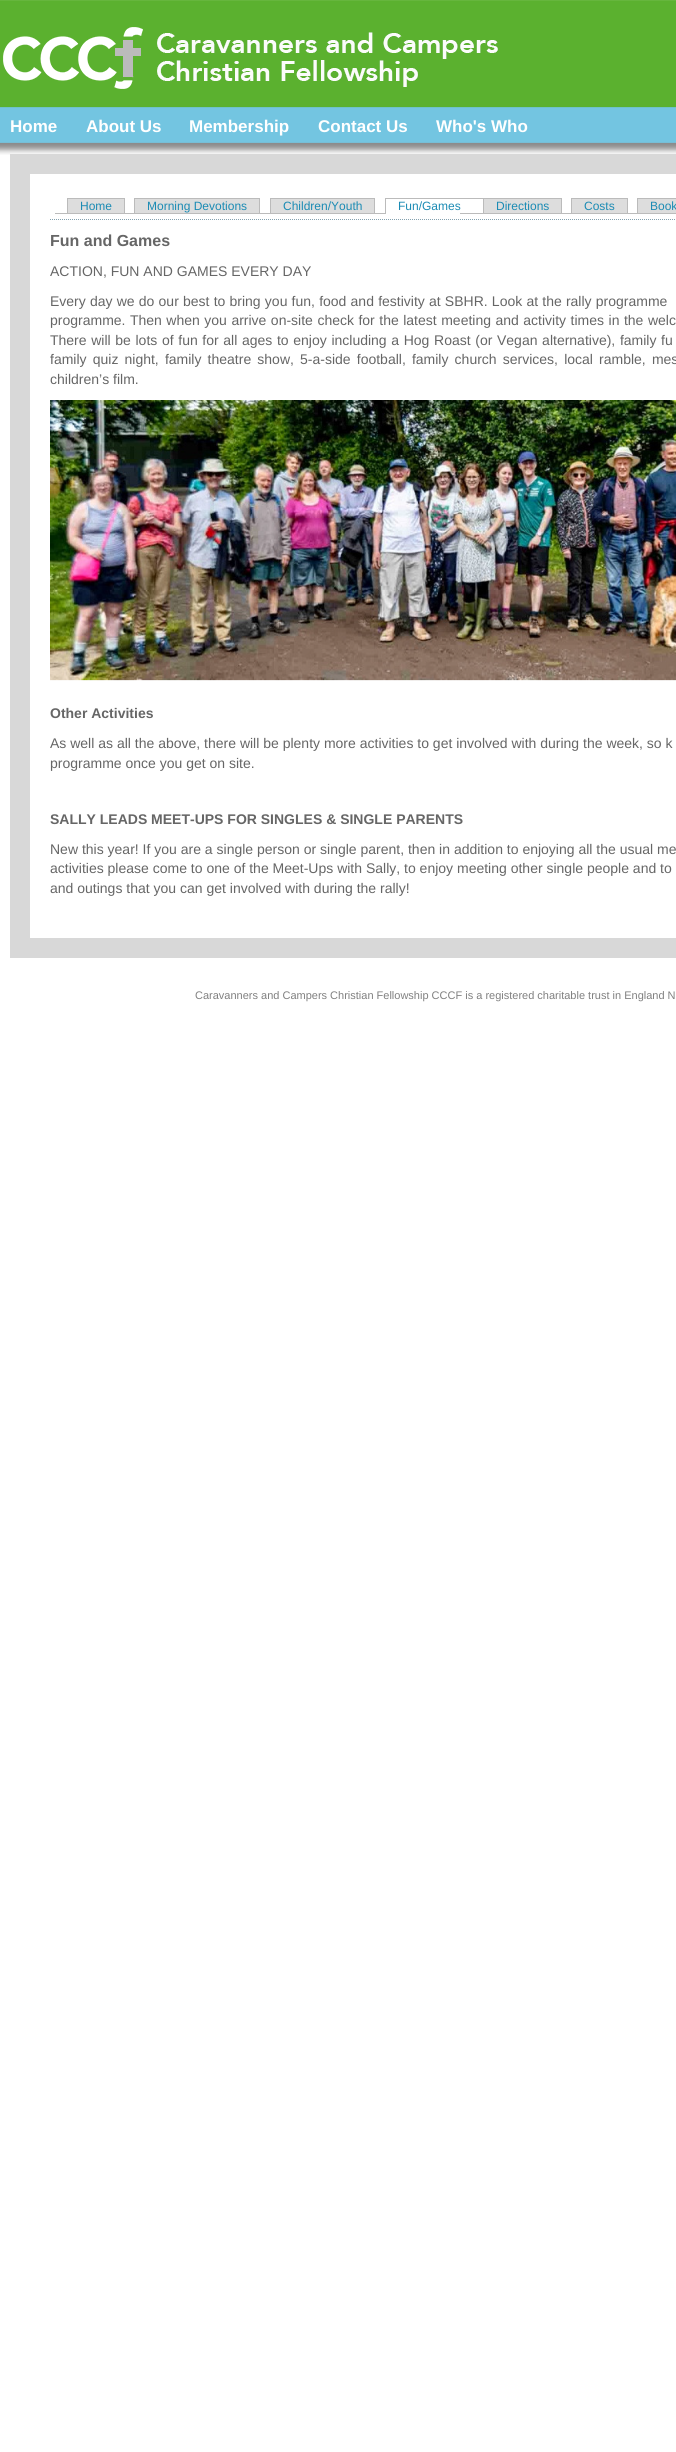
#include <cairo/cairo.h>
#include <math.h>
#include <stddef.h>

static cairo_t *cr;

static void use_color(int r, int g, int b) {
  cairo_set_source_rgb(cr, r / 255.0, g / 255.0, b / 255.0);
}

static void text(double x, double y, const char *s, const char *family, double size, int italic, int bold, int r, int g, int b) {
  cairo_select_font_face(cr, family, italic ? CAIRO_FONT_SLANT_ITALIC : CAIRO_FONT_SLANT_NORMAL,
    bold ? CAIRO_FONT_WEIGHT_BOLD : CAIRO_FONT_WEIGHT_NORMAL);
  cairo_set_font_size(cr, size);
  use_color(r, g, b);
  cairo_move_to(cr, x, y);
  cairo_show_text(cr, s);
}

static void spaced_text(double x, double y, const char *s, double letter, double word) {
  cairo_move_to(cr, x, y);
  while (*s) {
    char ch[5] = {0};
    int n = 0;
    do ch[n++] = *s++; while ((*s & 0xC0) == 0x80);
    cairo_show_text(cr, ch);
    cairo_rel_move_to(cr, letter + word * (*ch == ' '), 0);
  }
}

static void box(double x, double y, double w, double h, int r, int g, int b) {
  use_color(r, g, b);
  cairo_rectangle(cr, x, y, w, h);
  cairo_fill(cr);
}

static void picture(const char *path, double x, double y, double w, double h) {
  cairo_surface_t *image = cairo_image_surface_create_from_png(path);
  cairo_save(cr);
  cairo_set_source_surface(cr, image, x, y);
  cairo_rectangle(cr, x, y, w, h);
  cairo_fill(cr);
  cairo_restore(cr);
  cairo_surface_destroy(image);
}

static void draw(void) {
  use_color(255, 255, 255);
  cairo_paint(cr);
  picture("img_01.png", 0, 0, 676, 155);
  picture("img_02.png", 3, 27, 495, 62);
  box(10, 154, 666, 804, 216, 216, 216);
  box(30, 174, 646, 764, 255, 255, 255);
  box(55, 213, 621, 1, 187, 187, 187);
  box(68, 199, 56, 14, 221, 221, 221);
  box(67, 198, 58, 1, 187, 187, 187);
  box(124, 198, 1, 15, 187, 187, 187);
  box(67, 198, 1, 15, 187, 187, 187);
  box(135, 199, 124, 14, 221, 221, 221);
  box(134, 198, 126, 1, 187, 187, 187);
  box(259, 198, 1, 15, 187, 187, 187);
  box(134, 198, 1, 15, 187, 187, 187);
  box(271, 199, 103, 14, 221, 221, 221);
  box(270, 198, 105, 1, 187, 187, 187);
  box(374, 198, 1, 15, 187, 187, 187);
  box(270, 198, 1, 15, 187, 187, 187);
  box(386, 213, 74, 1, 255, 255, 255);
  box(385, 198, 177, 1, 187, 187, 187);
  box(385, 198, 1, 16, 187, 187, 187);
  box(484, 199, 77, 14, 221, 221, 221);
  box(561, 198, 1, 15, 187, 187, 187);
  box(483, 198, 1, 15, 187, 187, 187);
  box(572, 199, 55, 14, 221, 221, 221);
  box(571, 198, 57, 1, 187, 187, 187);
  box(627, 198, 1, 15, 187, 187, 187);
  box(571, 198, 1, 15, 187, 187, 187);
  box(638, 199, 38, 14, 221, 221, 221);
  box(637, 198, 39, 1, 187, 187, 187);
  box(637, 198, 1, 15, 187, 187, 187);
  cairo_new_path(cr);
  cairo_move_to(cr, 50, 219.5);
  cairo_line_to(cr, 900, 219.5);
  use_color(132, 161, 175);
  cairo_set_line_width(cr, 1);
  cairo_set_dash(cr, (double[]){1, 1}, 2, 0);
  cairo_stroke(cr);
  picture("img_03.png", 50, 400, 626, 281);
  text(10, 132, "Home", "Liberation Sans", 17, 0, 1, 255, 255, 255);
  text(86, 132, "About Us", "Liberation Sans", 17, 0, 1, 255, 255, 255);
  text(189, 132, "Membership", "Liberation Sans", 17, 0, 1, 255, 255, 255);
  text(318, 132, "Contact Us", "Liberation Sans", 17, 0, 1, 255, 255, 255);
  text(436, 132, "Who's Who", "Liberation Sans", 17, 0, 1, 255, 255, 255);
  text(80, 210, "Home", "Liberation Sans", 12, 0, 0, 27, 139, 180);
  text(147, 210, "Morning Devotions", "Liberation Sans", 12, 0, 0, 27, 139, 180);
  text(283, 210, "Children/Youth", "Liberation Sans", 12, 0, 0, 27, 139, 180);
  text(398, 210, "Fun/Games", "Liberation Sans", 12, 0, 0, 27, 139, 180);
  text(496, 210, "Directions", "Liberation Sans", 12, 0, 0, 27, 139, 180);
  text(584, 210, "Costs", "Liberation Sans", 12, 0, 0, 27, 139, 180);
  text(650, 210, "Book", "Liberation Sans", 12, 0, 0, 27, 139, 180);
  text(50, 246, "Fun and Games", "Liberation Sans", 16, 0, 1, 102, 102, 102);
  text(50, 276, "ACTION, FUN AND GAMES EVERY DAY", "Liberation Sans", 14, 0, 0, 102, 102, 102);
  spaced_text(50, 306, "Every day we do our best to bring you fun, food and festivity at SBHR. Look at the rally programme", 0, 0.3);
  spaced_text(50, 325, "programme. Then when you arrive on-site check for the latest meeting and activity times in the welc", 0, 0.6);
  spaced_text(50, 345, "There will be lots of fun for all ages to enjoy including a Hog Roast (or Vegan alternative), family fu", 0, 0.75);
  spaced_text(50, 364, "family quiz night, family theatre show, 5-a-side football, family church services, local ramble, mes", 0, 2.25);
  text(50, 384, "children’s film.", "Liberation Sans", 14, 0, 0, 102, 102, 102);
  text(50, 718, "Other Activities", "Liberation Sans", 14, 0, 1, 102, 102, 102);
  text(50, 748, "As well as all the above, there will be plenty more activities to get involved with during the week, so k", "Liberation Sans", 14, 0, 0, 102, 102, 102);
  text(50, 768, "programme once you get on site.", "Liberation Sans", 14, 0, 0, 102, 102, 102);
  text(50, 824, "SALLY LEADS MEET-UPS FOR SINGLES & SINGLE PARENTS", "Liberation Sans", 14, 0, 1, 102, 102, 102);
  text(50, 854, "New this year! If you are a single person or single parent, then in addition to enjoying all the usual me", "Liberation Sans", 14, 0, 0, 102, 102, 102);
  text(50, 873, "activities please come to one of the Meet-Ups with Sally, to enjoy meeting other single people and to", "Liberation Sans", 14, 0, 0, 102, 102, 102);
  text(50, 893, "and outings that you can get involved with during the rally!", "Liberation Sans", 14, 0, 0, 102, 102, 102);
  text(195, 999, "Caravanners and Campers Christian Fellowship CCCF is a registered charitable trust in England N", "Liberation Sans", 11, 0, 0, 128, 128, 128);
}

int main(void) {
  cairo_surface_t *surface = cairo_image_surface_create(CAIRO_FORMAT_RGB24, 676, 2452);
  cr = cairo_create(surface);
  cairo_font_options_t *options = cairo_font_options_create();
  cairo_font_options_set_hint_metrics(options, CAIRO_HINT_METRICS_OFF);
  cairo_font_options_set_hint_style(options, CAIRO_HINT_STYLE_NONE);
  cairo_set_font_options(cr, options);
  cairo_set_miter_limit(cr, 4);
  draw();
  cairo_surface_write_to_png(surface, "out.png");
  cairo_font_options_destroy(options);
  cairo_destroy(cr);
  cairo_surface_destroy(surface);
  return 0;
}
